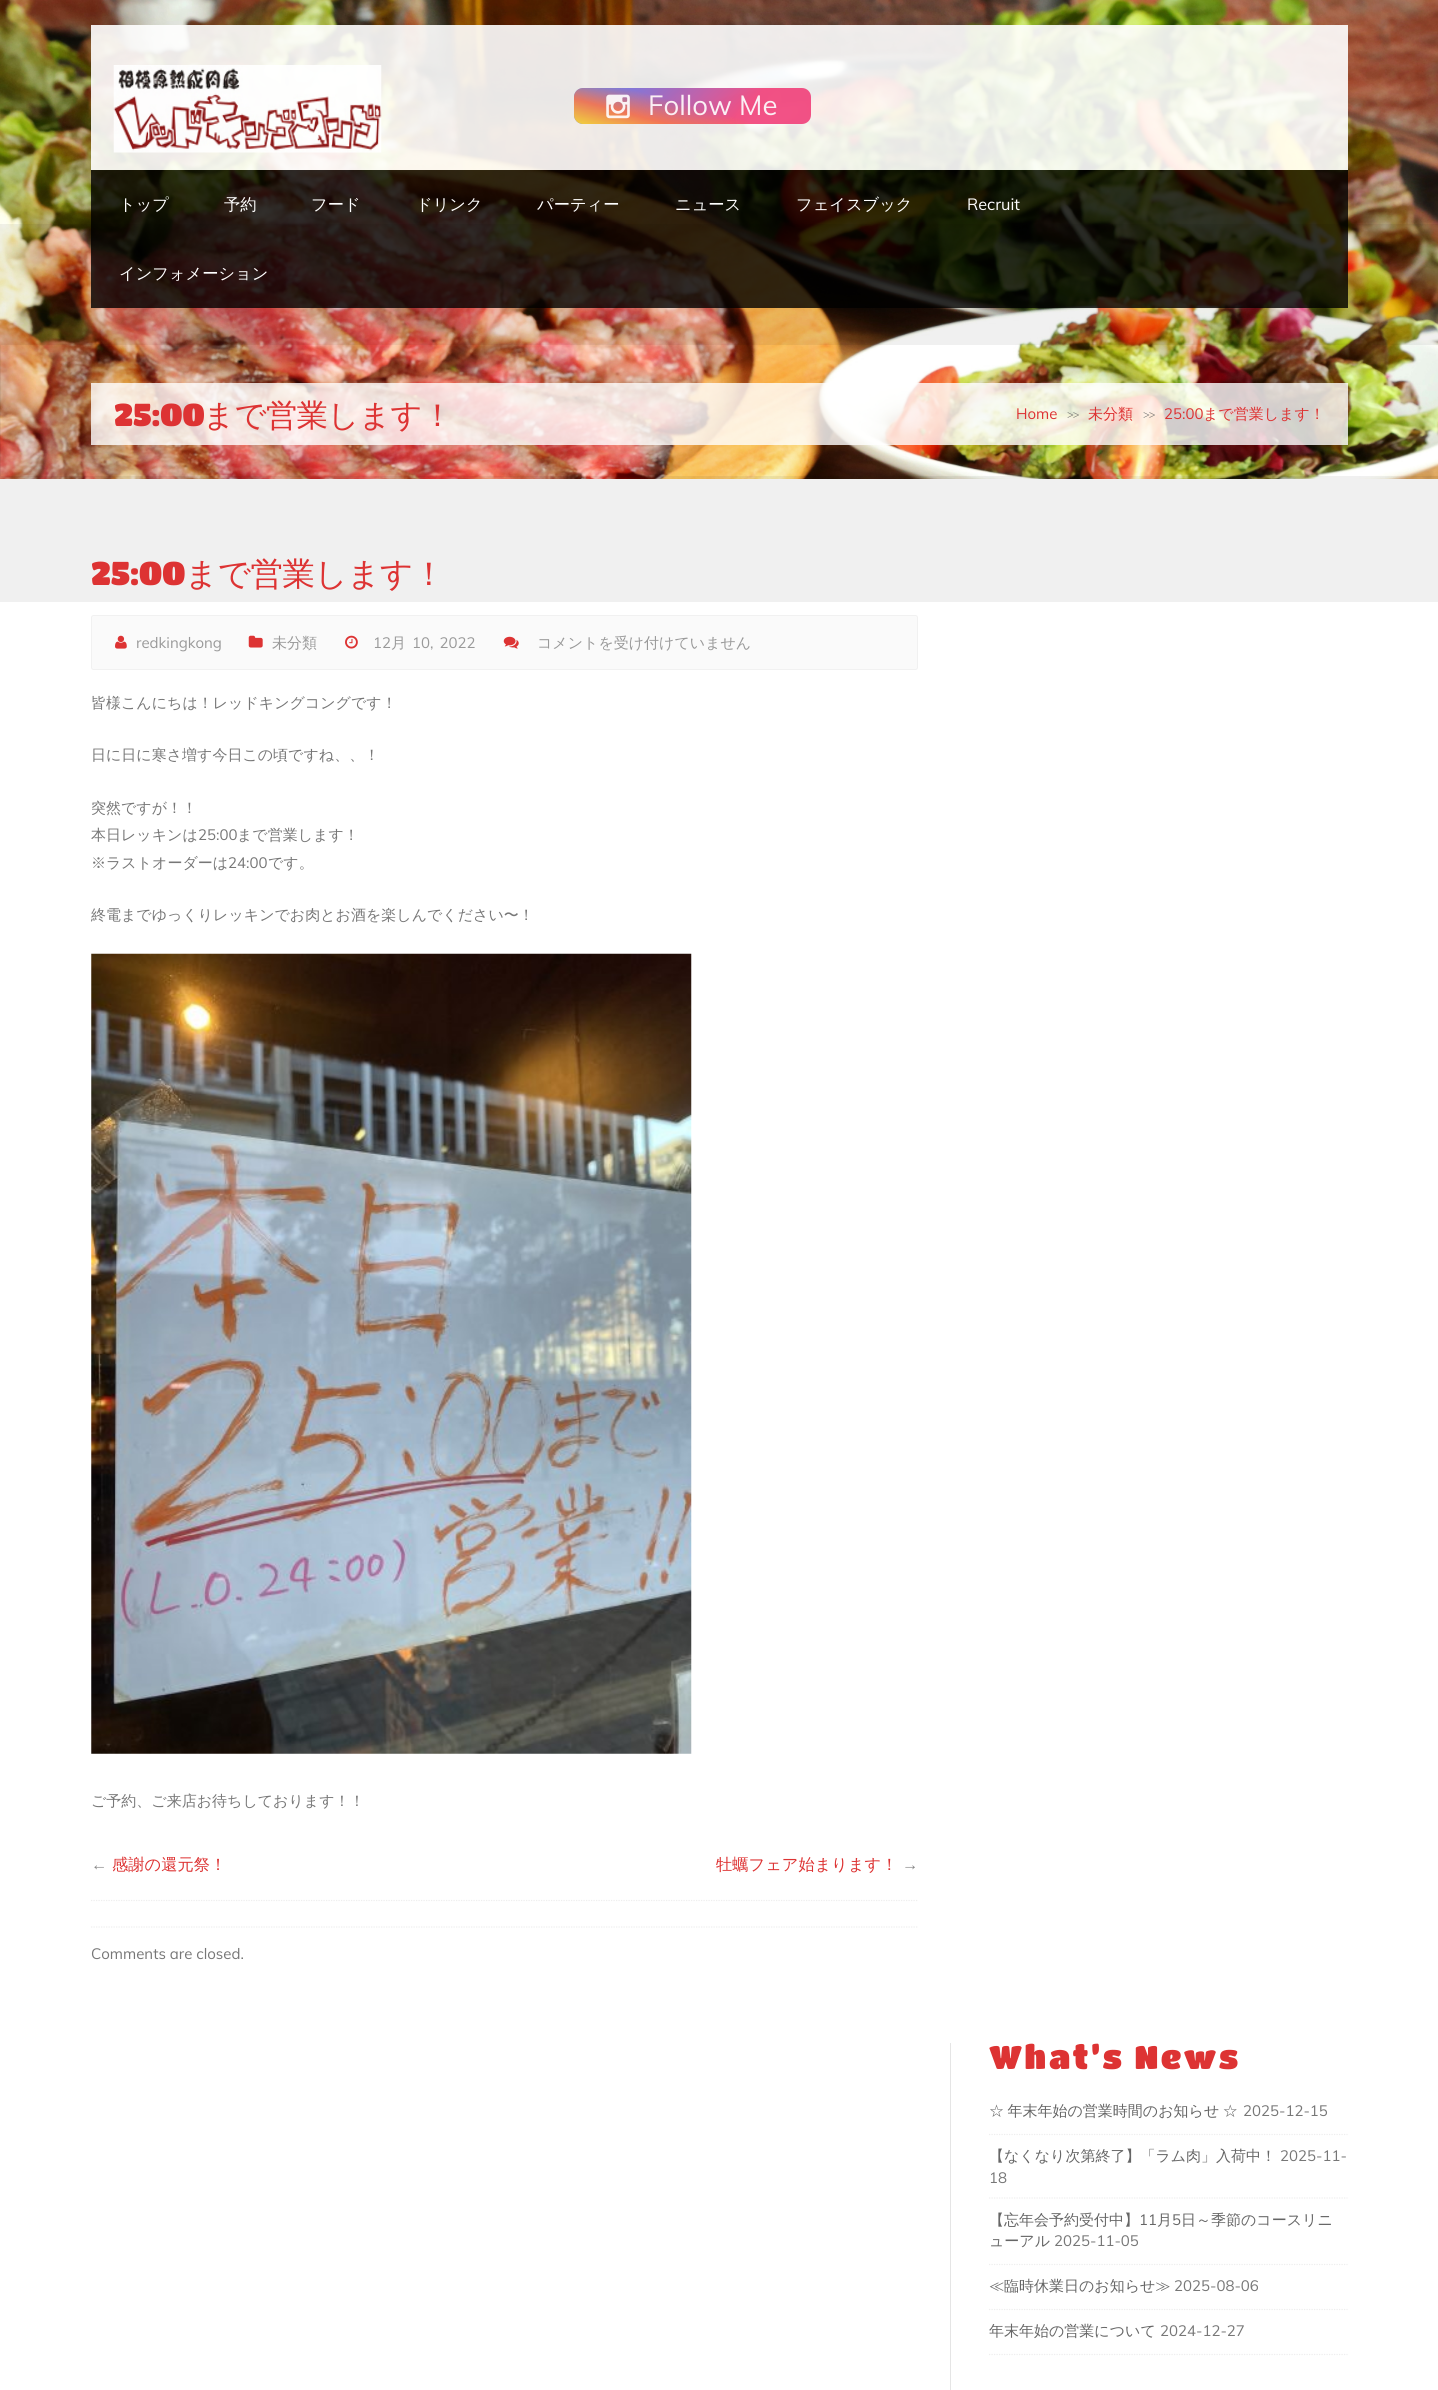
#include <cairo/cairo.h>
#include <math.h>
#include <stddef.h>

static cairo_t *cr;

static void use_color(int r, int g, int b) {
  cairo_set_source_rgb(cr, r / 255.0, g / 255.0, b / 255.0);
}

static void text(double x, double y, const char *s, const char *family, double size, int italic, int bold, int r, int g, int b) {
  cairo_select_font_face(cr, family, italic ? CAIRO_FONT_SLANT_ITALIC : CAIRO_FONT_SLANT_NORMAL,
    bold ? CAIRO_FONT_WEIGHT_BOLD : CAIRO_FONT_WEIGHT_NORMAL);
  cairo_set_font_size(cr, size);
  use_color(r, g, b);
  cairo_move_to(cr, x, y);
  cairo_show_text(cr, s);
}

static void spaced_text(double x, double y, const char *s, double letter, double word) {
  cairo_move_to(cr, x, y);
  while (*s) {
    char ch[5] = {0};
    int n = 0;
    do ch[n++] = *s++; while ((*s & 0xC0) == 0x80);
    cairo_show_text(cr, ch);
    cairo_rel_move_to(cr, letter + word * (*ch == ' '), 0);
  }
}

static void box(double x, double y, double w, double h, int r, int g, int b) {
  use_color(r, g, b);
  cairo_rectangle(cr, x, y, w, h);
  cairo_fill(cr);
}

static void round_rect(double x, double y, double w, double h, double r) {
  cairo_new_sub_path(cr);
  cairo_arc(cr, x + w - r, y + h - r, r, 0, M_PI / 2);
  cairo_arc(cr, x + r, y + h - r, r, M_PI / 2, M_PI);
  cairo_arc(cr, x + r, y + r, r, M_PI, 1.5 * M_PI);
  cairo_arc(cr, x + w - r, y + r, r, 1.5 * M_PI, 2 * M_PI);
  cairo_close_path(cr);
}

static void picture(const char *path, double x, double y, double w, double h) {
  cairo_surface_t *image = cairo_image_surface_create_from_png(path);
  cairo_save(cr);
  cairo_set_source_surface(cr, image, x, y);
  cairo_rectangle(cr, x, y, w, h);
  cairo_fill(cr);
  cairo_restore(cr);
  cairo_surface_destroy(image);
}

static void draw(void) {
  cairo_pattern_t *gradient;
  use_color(255, 255, 255);
  cairo_paint(cr);
  picture("img_01.png", 0, 0, 1438, 479);
  cairo_set_source_rgba(cr, 1, 1, 1, 0.9);
  cairo_rectangle(cr, 91, 25, 1257, 145);
  cairo_fill(cr);
  picture("img_02.png", 113, 65, 269, 88);
  gradient = cairo_pattern_create_linear(624, 37, 761, 174);
  cairo_pattern_add_color_stop_rgba(gradient, 0, 0.259, 0.494, 1, 0.9);
  cairo_pattern_add_color_stop_rgba(gradient, 0.7, 0.945, 0.247, 0.475, 0.9);
  cairo_set_source(cr, gradient);
  cairo_pattern_destroy(gradient);
  round_rect(574, 88, 237, 36, 9);
  cairo_fill(cr);
  gradient = cairo_pattern_create_linear(680, 152, 705, 59);
  cairo_pattern_add_color_stop_rgba(gradient, 0, 1, 0.859, 0.173, 0.9);
  cairo_pattern_add_color_stop_rgba(gradient, 0.25, 0.976, 0.463, 0.298, 0.9);
  cairo_pattern_add_color_stop_rgba(gradient, 0.5, 0.976, 0.463, 0.298, 0);
  cairo_set_source(cr, gradient);
  cairo_pattern_destroy(gradient);
  round_rect(574, 88, 237, 36, 9);
  cairo_fill(cr);
  picture("img_03.png", 606, 94, 24, 25);
  cairo_set_source_rgba(cr, 0, 0, 0, 0.8);
  cairo_rectangle(cr, 91, 170, 1257, 138);
  cairo_fill(cr);
  cairo_set_source_rgba(cr, 0, 0, 0, 0.06);
  cairo_set_fill_rule(cr, CAIRO_FILL_RULE_EVEN_ODD);
  cairo_new_path(cr);
  cairo_move_to(cr, -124, 224);
  cairo_line_to(cr, 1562, 224);
  cairo_line_to(cr, 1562, 602);
  cairo_line_to(cr, -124, 602);
  cairo_close_path(cr);
  cairo_move_to(cr, 1, 345);
  cairo_line_to(cr, 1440, 345);
  cairo_line_to(cr, 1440, 476);
  cairo_line_to(cr, 1, 476);
  cairo_close_path(cr);
  cairo_fill(cr);
  cairo_set_source_rgba(cr, 1, 1, 1, 0.8);
  cairo_rectangle(cr, 91, 383, 1257, 62);
  cairo_fill(cr);
  use_color(250, 250, 250);
  round_rect(91.5, 615.5, 826, 54, 2);
  cairo_fill_preserve(cr);
  use_color(241, 241, 241);
  cairo_set_line_width(cr, 1);
  cairo_stroke(cr);
  picture("img_04.png", 115, 635, 12, 14);
  picture("img_05.png", 248, 635, 15, 13);
  picture("img_06.png", 345, 635, 13, 14);
  picture("img_07.png", 503, 636, 16, 13);
  picture("img_08.png", 91, 953, 601, 801);
  cairo_new_path(cr);
  cairo_move_to(cr, 91, 1900.5);
  cairo_line_to(cr, 917.5, 1900.5);
  use_color(238, 238, 238);
  cairo_set_line_width(cr, 1.2);
  cairo_set_dash(cr, (double[]){1.25, 1.25}, 2, 0);
  cairo_stroke(cr);
  cairo_new_path(cr);
  cairo_move_to(cr, 91, 1927);
  cairo_line_to(cr, 917.5, 1927);
  cairo_stroke(cr);
  box(950, 2043, 1, 347, 229, 229, 229);
  cairo_new_path(cr);
  cairo_move_to(cr, 989, 2134.5);
  cairo_line_to(cr, 1347.5, 2134.5);
  use_color(238, 238, 238);
  cairo_stroke(cr);
  cairo_new_path(cr);
  cairo_move_to(cr, 989, 2198);
  cairo_line_to(cr, 1347.5, 2198);
  cairo_stroke(cr);
  cairo_new_path(cr);
  cairo_move_to(cr, 989, 2264.5);
  cairo_line_to(cr, 1347.5, 2264.5);
  cairo_stroke(cr);
  cairo_new_path(cr);
  cairo_move_to(cr, 989, 2309.5);
  cairo_line_to(cr, 1347.5, 2309.5);
  cairo_stroke(cr);
  cairo_new_path(cr);
  cairo_move_to(cr, 989, 2354.5);
  cairo_line_to(cr, 1347.5, 2354.5);
  cairo_stroke(cr);
  text(648, 115, "Follow Me", "Muli", 27.5, 0, 0, 251, 239, 244);
  text(119, 210, "トップ", "WenQuanYi Zen Hei Medium", 16.25, 0, 0, 255, 255, 255);
  text(224, 210, "予約", "WenQuanYi Zen Hei Medium", 16.25, 0, 0, 255, 255, 255);
  text(311, 210, "フード", "WenQuanYi Zen Hei Medium", 16.25, 0, 0, 255, 255, 255);
  text(416, 210, "ドリンク", "WenQuanYi Zen Hei Medium", 16.25, 0, 0, 255, 255, 255);
  text(537, 210, "パーティー", "WenQuanYi Zen Hei Medium", 16.25, 0, 0, 255, 255, 255);
  text(675, 210, "ニュース", "WenQuanYi Zen Hei Medium", 16.25, 0, 0, 255, 255, 255);
  text(796, 210, "フェイスブック", "WenQuanYi Zen Hei Medium", 16.25, 0, 0, 255, 255, 255);
  text(967, 210, "Recruit", "Muli", 16.25, 0, 0, 255, 255, 255);
  text(119, 279, "インフォメーション", "WenQuanYi Zen Hei Medium", 16.25, 0, 0, 255, 255, 255);
  cairo_select_font_face(cr, "Titan One", CAIRO_FONT_SLANT_NORMAL, CAIRO_FONT_WEIGHT_NORMAL);
  cairo_set_font_size(cr, 31.25);
  use_color(221, 51, 51);
  spaced_text(114, 426, "25:00", -0.5, 0);
  cairo_select_font_face(cr, "WenQuanYi Zen Hei Medium", CAIRO_FONT_SLANT_NORMAL, CAIRO_FONT_WEIGHT_NORMAL);
  spaced_text(203, 426, "まで営業します！", -0.5, 0);
  text(1016, 419, "Home", "Muli", 15, 0, 0, 221, 51, 51);
  cairo_select_font_face(cr, "Liberation Serif", CAIRO_FONT_SLANT_NORMAL, CAIRO_FONT_WEIGHT_NORMAL);
  cairo_set_font_size(cr, 12);
  use_color(102, 102, 102);
  spaced_text(1067, 419, ">>", -1, 0);
  text(1088, 419, "未分類", "WenQuanYi Zen Hei Medium", 15, 0, 0, 221, 51, 51);
  cairo_select_font_face(cr, "Liberation Serif", CAIRO_FONT_SLANT_NORMAL, CAIRO_FONT_WEIGHT_NORMAL);
  cairo_set_font_size(cr, 12);
  use_color(102, 102, 102);
  spaced_text(1143, 419, ">>", -1, 0);
  text(1164, 419, "25:00", "Muli", 15, 0, 0, 221, 51, 51);
  text(1203, 419, "まで営業します！", "WenQuanYi Zen Hei Medium", 15, 0, 0, 221, 51, 51);
  cairo_select_font_face(cr, "Titan One", CAIRO_FONT_SLANT_NORMAL, CAIRO_FONT_WEIGHT_NORMAL);
  cairo_set_font_size(cr, 32.5);
  spaced_text(91, 585, "25:00", -0.5, 0);
  cairo_select_font_face(cr, "WenQuanYi Zen Hei Medium", CAIRO_FONT_SLANT_NORMAL, CAIRO_FONT_WEIGHT_NORMAL);
  spaced_text(185, 585, "まで営業します！", -0.5, 0);
  text(136, 648, "redkingkong", "Muli", 15, 0, 0, 153, 153, 153);
  text(272, 648, "未分類", "WenQuanYi Zen Hei Medium", 15, 0, 0, 153, 153, 153);
  text(373, 648, "12", "Muli", 15, 0, 0, 153, 153, 153);
  text(391, 648, "月", "WenQuanYi Zen Hei Medium", 15, 0, 0, 153, 153, 153);
  cairo_select_font_face(cr, "Muli", CAIRO_FONT_SLANT_NORMAL, CAIRO_FONT_WEIGHT_NORMAL);
  spaced_text(412, 648, "10, 2022", 0, 2);
  text(537, 648, "コメントを受け付けていません", "WenQuanYi Zen Hei Medium", 15, 0, 0, 153, 153, 153);
  text(91, 708, "皆様こんにちは！レッドキングコングです！", "WenQuanYi Zen Hei Medium", 15, 0, 0, 119, 119, 119);
  text(91, 760, "日に日に寒さ増す今日この頃ですね、、！", "WenQuanYi Zen Hei Medium", 15, 0, 0, 119, 119, 119);
  text(91, 813, "突然ですが！！", "WenQuanYi Zen Hei Medium", 15, 0, 0, 119, 119, 119);
  text(91, 840, "本日レッキンは", "WenQuanYi Zen Hei Medium", 15, 0, 0, 119, 119, 119);
  text(198, 840, "25:00", "Muli", 15, 0, 0, 119, 119, 119);
  text(237, 840, "まで営業します！", "WenQuanYi Zen Hei Medium", 15, 0, 0, 119, 119, 119);
  text(91, 868, "※ラストオーダーは", "WenQuanYi Zen Hei Medium", 15, 0, 0, 119, 119, 119);
  text(228, 868, "24:00", "Muli", 15, 0, 0, 119, 119, 119);
  text(268, 868, "です。", "WenQuanYi Zen Hei Medium", 15, 0, 0, 119, 119, 119);
  text(91, 920, "終電までゆっくりレッキンでお肉とお酒を楽しんでください〜！", "WenQuanYi Zen Hei Medium", 15, 0, 0, 119, 119, 119);
  text(91, 1806, "ご予約、ご来店お待ちしております！！", "WenQuanYi Zen Hei Medium", 15, 0, 0, 119, 119, 119);
  text(91, 1870, "←", "Liberation Sans", 16.25, 0, 0, 136, 136, 136);
  text(112, 1870, "感謝の還元祭！", "WenQuanYi Zen Hei Medium", 16.25, 0, 0, 221, 51, 51);
  text(716, 1870, "牡蠣フェア始まります！", "WenQuanYi Zen Hei Medium", 16.25, 0, 0, 221, 51, 51);
  text(902, 1870, "→", "Liberation Sans", 16.25, 0, 0, 136, 136, 136);
  text(91, 1959, "Comments are closed.", "Muli", 15, 0, 0, 119, 119, 119);
  cairo_select_font_face(cr, "Titan One", CAIRO_FONT_SLANT_NORMAL, CAIRO_FONT_WEIGHT_NORMAL);
  cairo_set_font_size(cr, 32.5);
  use_color(221, 51, 51);
  spaced_text(989, 2069, "What’s News", 2.5, 0);
  cairo_select_font_face(cr, "WenQuanYi Zen Hei Medium", CAIRO_FONT_SLANT_NORMAL, CAIRO_FONT_WEIGHT_NORMAL);
  cairo_set_font_size(cr, 15);
  use_color(102, 102, 102);
  spaced_text(989, 2116, "☆ 年末年始の営業時間のお知らせ ☆", 0, -1);
  text(1243, 2116, "2025-12-15", "Muli", 15, 0, 0, 119, 119, 119);
  text(989, 2161, "【なくなり次第終了】「ラム肉」入荷中！", "WenQuanYi Zen Hei Medium", 15, 0, 0, 102, 102, 102);
  text(1280, 2161, "2025-11-", "Muli", 15, 0, 0, 119, 119, 119);
  text(989, 2183, "18", "Muli", 15, 0, 0, 119, 119, 119);
  text(989, 2225, "【忘年会予約受付中】", "WenQuanYi Zen Hei Medium", 15, 0, 0, 102, 102, 102);
  text(1139, 2225, "11", "Muli", 15, 0, 0, 102, 102, 102);
  text(1157, 2225, "月", "WenQuanYi Zen Hei Medium", 15, 0, 0, 102, 102, 102);
  text(1172, 2225, "5", "Muli", 15, 0, 0, 102, 102, 102);
  text(1181, 2225, "日～季節のコースリニ", "WenQuanYi Zen Hei Medium", 15, 0, 0, 102, 102, 102);
  text(989, 2246, "ューアル", "WenQuanYi Zen Hei Medium", 15, 0, 0, 102, 102, 102);
  text(1054, 2246, "2025-11-05", "Muli", 15, 0, 0, 119, 119, 119);
  text(989, 2291, "≪臨時休業日のお知らせ≫", "WenQuanYi Zen Hei Medium", 15, 0, 0, 102, 102, 102);
  text(1174, 2291, "2025-08-06", "Muli", 15, 0, 0, 119, 119, 119);
  text(989, 2336, "年末年始の営業について", "WenQuanYi Zen Hei Medium", 15, 0, 0, 102, 102, 102);
  text(1160, 2336, "2024-12-27", "Muli", 15, 0, 0, 119, 119, 119);
}

int main(void) {
  cairo_surface_t *surface = cairo_image_surface_create(CAIRO_FORMAT_RGB24, 1438, 2390);
  cr = cairo_create(surface);
  cairo_font_options_t *options = cairo_font_options_create();
  cairo_font_options_set_hint_metrics(options, CAIRO_HINT_METRICS_OFF);
  cairo_font_options_set_hint_style(options, CAIRO_HINT_STYLE_NONE);
  cairo_set_font_options(cr, options);
  cairo_set_miter_limit(cr, 4);
  draw();
  cairo_surface_write_to_png(surface, "out.png");
  cairo_font_options_destroy(options);
  cairo_destroy(cr);
  cairo_surface_destroy(surface);
  return 0;
}
